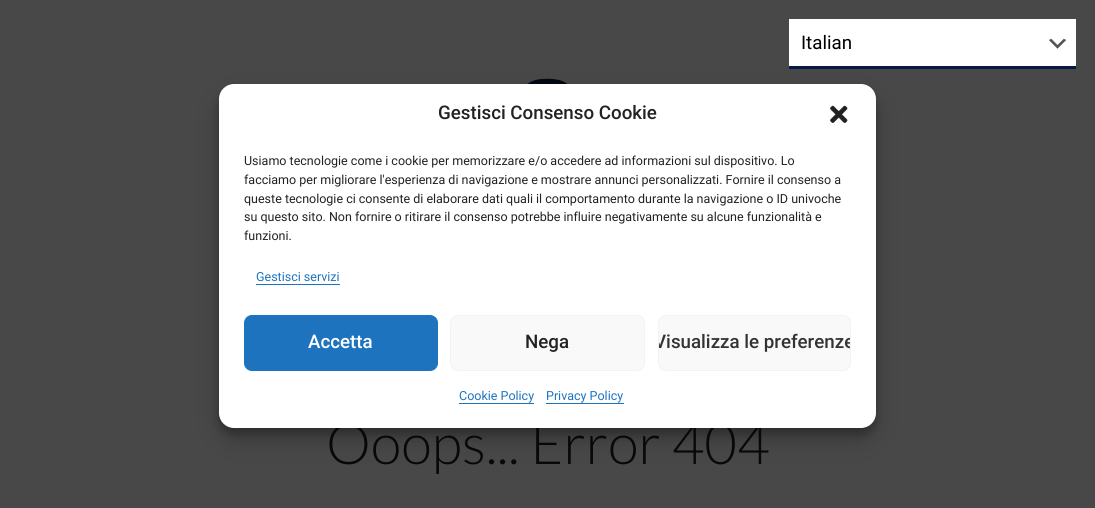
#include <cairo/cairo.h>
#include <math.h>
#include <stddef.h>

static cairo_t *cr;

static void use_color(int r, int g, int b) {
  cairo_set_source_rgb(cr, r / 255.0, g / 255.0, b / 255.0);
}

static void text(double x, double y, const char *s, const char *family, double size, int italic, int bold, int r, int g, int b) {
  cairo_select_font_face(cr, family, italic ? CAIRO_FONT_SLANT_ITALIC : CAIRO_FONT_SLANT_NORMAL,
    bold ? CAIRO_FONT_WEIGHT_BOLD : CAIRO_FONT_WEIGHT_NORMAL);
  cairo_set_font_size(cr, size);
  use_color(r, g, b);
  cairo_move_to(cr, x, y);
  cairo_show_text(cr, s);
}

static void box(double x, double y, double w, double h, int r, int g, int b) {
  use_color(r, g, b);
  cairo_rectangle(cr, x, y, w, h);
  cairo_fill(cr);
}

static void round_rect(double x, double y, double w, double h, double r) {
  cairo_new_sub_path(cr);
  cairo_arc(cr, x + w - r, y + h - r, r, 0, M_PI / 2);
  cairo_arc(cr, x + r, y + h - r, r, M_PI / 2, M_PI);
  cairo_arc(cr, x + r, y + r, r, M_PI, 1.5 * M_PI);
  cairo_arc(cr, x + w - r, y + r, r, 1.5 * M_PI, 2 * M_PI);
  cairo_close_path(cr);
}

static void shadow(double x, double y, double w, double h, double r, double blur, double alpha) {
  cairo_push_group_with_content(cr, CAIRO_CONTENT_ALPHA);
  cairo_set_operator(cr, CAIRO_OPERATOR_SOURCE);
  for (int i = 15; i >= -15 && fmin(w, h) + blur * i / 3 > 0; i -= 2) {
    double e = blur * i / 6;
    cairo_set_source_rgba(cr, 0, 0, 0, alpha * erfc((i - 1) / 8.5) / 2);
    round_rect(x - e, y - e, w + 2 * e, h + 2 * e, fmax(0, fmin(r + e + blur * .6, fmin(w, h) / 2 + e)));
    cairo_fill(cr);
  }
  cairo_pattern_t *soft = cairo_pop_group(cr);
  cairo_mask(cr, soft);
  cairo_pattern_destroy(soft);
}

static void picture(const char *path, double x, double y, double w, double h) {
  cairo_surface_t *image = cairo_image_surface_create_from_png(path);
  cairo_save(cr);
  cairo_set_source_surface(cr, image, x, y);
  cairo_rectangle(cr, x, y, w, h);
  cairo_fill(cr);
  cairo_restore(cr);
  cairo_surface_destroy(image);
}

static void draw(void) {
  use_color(73, 72, 72);
  cairo_paint(cr);
  picture("img_03.png", 527, 78, 40, 6);
  use_color(0, 0, 0);
  shadow(219, 96, 657, 344, 15, 12.5, 0.19);
  box(789, 19, 287, 47, 255, 255, 255);
  picture("img_01.png", 1049, 38, 18, 11);
  box(789, 66, 287, 3, 6, 24, 68);
  use_color(0, 0, 0);
  shadow(219, 91, 657, 344, 15, 4, 0.23);
  text(801, 49, "Italian", "Roboto", 18.75, 0, 0, 0, 0, 0);
  text(326, 464, "Ooops... Error 404", "Lato Light", 56.25, 0, 0, 8, 8, 8);
  use_color(255, 255, 255);
  round_rect(219, 84, 657, 344, 15);
  cairo_fill(cr);
  use_color(249, 249, 249);
  round_rect(658.5, 315.5, 192, 55, 7.5);
  cairo_fill_preserve(cr);
  use_color(242, 242, 242);
  cairo_set_line_width(cr, 1);
  cairo_stroke(cr);
  cairo_save(cr);
  round_rect(659, 316, 191, 54, 6);
  cairo_clip(cr);
  text(654, 348, "Visualizza le preferenze", "Roboto Medium", 18.75, 0, 0, 51, 51, 51);
  cairo_restore(cr);
  use_color(249, 249, 249);
  round_rect(450.5, 315.5, 194, 55, 7.5);
  cairo_fill_preserve(cr);
  use_color(242, 242, 242);
  cairo_stroke(cr);
  text(525, 348, "Nega", "Roboto Medium", 18.75, 0, 0, 34, 34, 34);
  use_color(30, 115, 190);
  round_rect(244.5, 315.5, 193, 55, 7.5);
  cairo_fill_preserve(cr);
  cairo_stroke(cr);
  text(308, 348, "Accetta", "Roboto Medium", 18.75, 0, 0, 255, 255, 255);
  text(244, 240, "funzioni.", "Roboto", 12.5, 0, 0, 34, 34, 34);
  text(244, 221, "su questo sito. Non fornire o ritirare il consenso potrebbe influire negativamente su alcune funzionalità e", "Roboto", 12.5, 0, 0, 34, 34, 34);
  text(244, 203, "queste tecnologie ci consente di elaborare dati quali il comportamento durante la navigazione o ID univoche", "Roboto", 12.5, 0, 0, 34, 34, 34);
  text(244, 184, "facciamo per migliorare l'esperienza di navigazione e mostrare annunci personalizzati. Fornire il consenso a", "Roboto", 12.5, 0, 0, 34, 34, 34);
  text(244, 165, "Usiamo tecnologie come i cookie per memorizzare e/o accedere ad informazioni sul dispositivo. Lo", "Roboto", 12.5, 0, 0, 34, 34, 34);
  picture("img_02.png", 830, 105, 18, 18);
  text(546, 400, "Privacy Policy", "Roboto", 12.5, 0, 0, 30, 115, 190);
  box(546, 403, 78, 1, 30, 115, 190);
  text(459, 400, "Cookie Policy", "Roboto", 12.5, 0, 0, 30, 115, 190);
  box(459, 403, 75, 1, 30, 115, 190);
  text(256, 281, "Gestisci servizi", "Roboto", 12.5, 0, 0, 30, 115, 190);
  box(256, 284, 84, 1, 30, 115, 190);
  text(438, 119, "Gestisci Consenso Cookie", "Roboto Medium", 18.75, 0, 0, 34, 34, 34);
}

int main(void) {
  cairo_surface_t *surface = cairo_image_surface_create(CAIRO_FORMAT_RGB24, 1095, 508);
  cr = cairo_create(surface);
  cairo_font_options_t *options = cairo_font_options_create();
  cairo_font_options_set_hint_metrics(options, CAIRO_HINT_METRICS_OFF);
  cairo_font_options_set_hint_style(options, CAIRO_HINT_STYLE_NONE);
  cairo_set_font_options(cr, options);
  cairo_set_miter_limit(cr, 4);
  draw();
  cairo_surface_write_to_png(surface, "out.png");
  cairo_font_options_destroy(options);
  cairo_destroy(cr);
  cairo_surface_destroy(surface);
  return 0;
}
